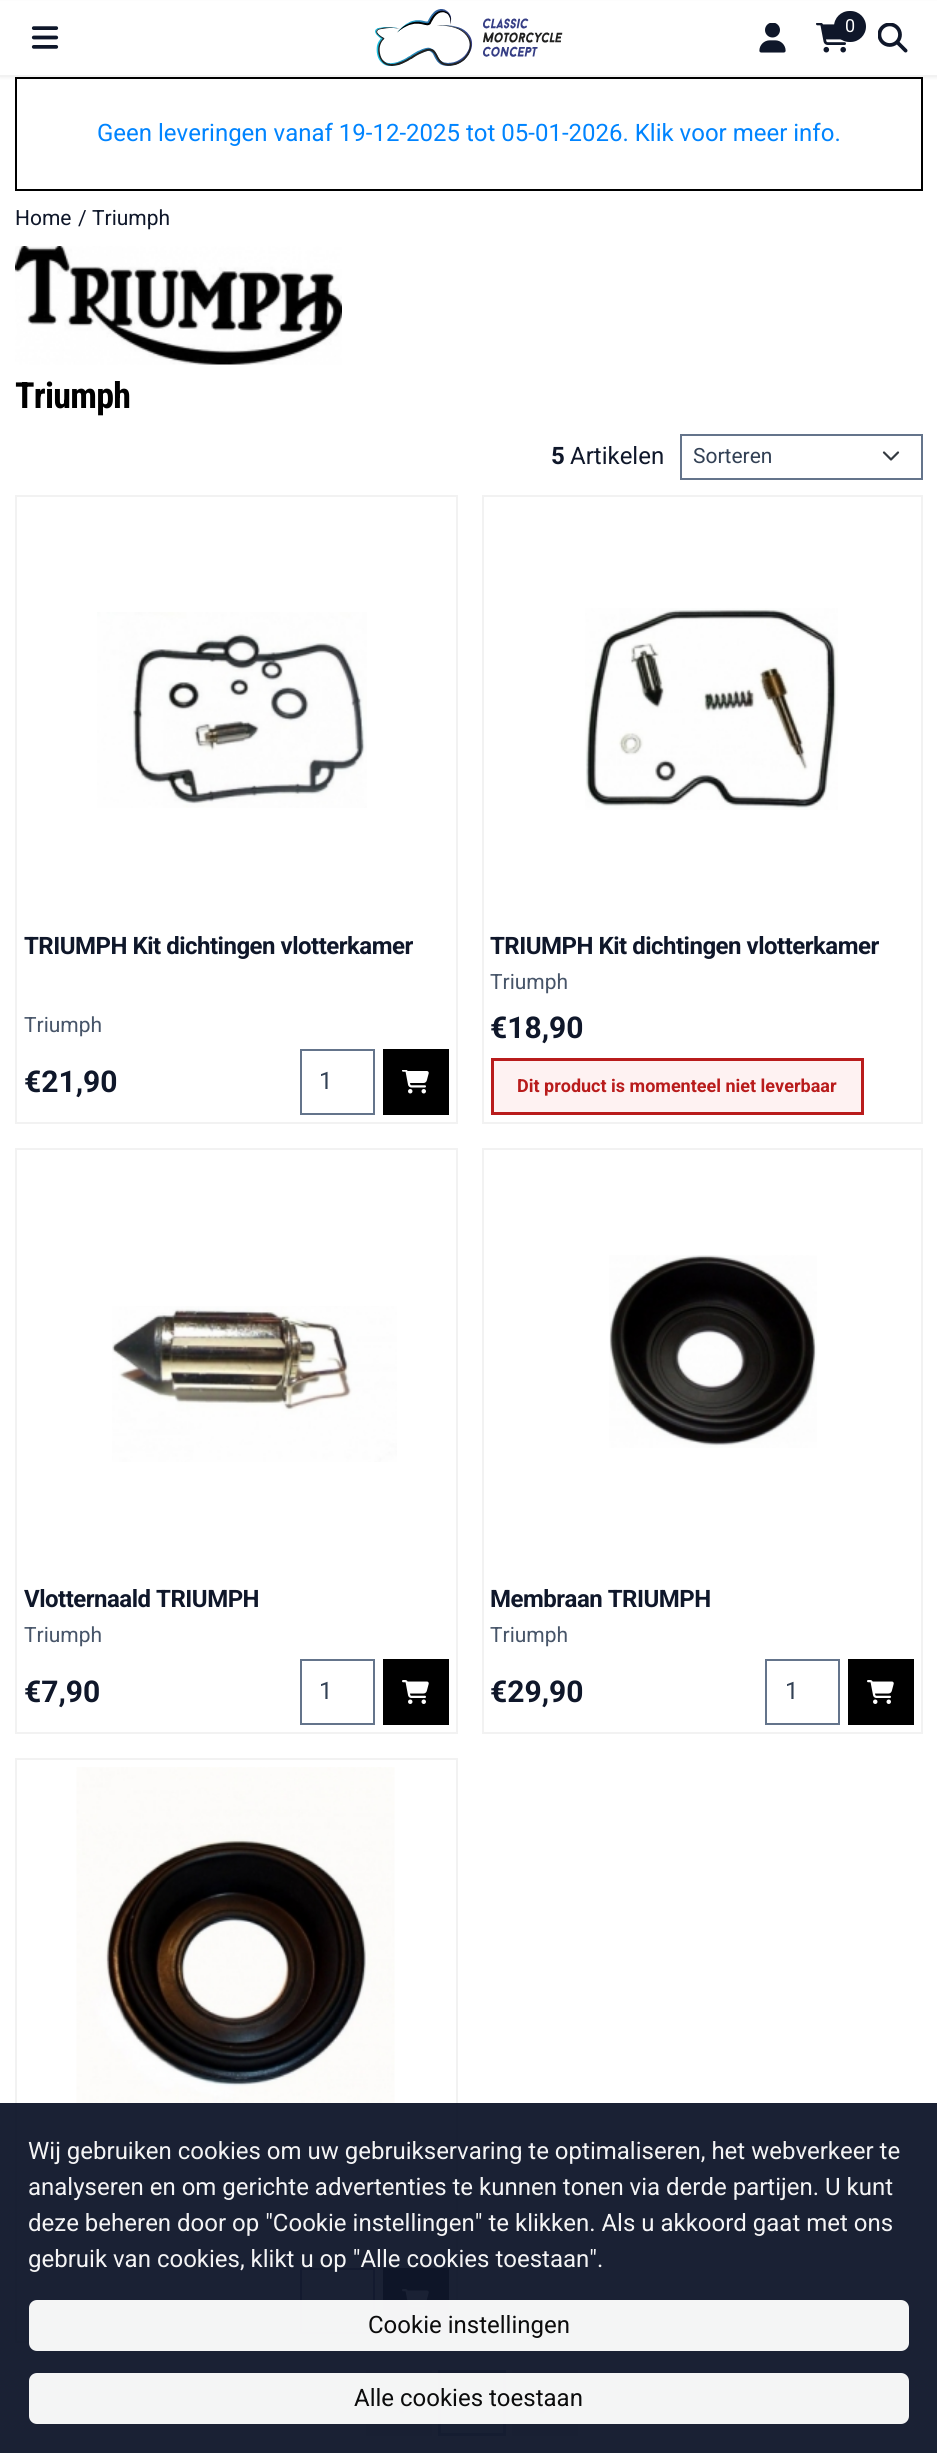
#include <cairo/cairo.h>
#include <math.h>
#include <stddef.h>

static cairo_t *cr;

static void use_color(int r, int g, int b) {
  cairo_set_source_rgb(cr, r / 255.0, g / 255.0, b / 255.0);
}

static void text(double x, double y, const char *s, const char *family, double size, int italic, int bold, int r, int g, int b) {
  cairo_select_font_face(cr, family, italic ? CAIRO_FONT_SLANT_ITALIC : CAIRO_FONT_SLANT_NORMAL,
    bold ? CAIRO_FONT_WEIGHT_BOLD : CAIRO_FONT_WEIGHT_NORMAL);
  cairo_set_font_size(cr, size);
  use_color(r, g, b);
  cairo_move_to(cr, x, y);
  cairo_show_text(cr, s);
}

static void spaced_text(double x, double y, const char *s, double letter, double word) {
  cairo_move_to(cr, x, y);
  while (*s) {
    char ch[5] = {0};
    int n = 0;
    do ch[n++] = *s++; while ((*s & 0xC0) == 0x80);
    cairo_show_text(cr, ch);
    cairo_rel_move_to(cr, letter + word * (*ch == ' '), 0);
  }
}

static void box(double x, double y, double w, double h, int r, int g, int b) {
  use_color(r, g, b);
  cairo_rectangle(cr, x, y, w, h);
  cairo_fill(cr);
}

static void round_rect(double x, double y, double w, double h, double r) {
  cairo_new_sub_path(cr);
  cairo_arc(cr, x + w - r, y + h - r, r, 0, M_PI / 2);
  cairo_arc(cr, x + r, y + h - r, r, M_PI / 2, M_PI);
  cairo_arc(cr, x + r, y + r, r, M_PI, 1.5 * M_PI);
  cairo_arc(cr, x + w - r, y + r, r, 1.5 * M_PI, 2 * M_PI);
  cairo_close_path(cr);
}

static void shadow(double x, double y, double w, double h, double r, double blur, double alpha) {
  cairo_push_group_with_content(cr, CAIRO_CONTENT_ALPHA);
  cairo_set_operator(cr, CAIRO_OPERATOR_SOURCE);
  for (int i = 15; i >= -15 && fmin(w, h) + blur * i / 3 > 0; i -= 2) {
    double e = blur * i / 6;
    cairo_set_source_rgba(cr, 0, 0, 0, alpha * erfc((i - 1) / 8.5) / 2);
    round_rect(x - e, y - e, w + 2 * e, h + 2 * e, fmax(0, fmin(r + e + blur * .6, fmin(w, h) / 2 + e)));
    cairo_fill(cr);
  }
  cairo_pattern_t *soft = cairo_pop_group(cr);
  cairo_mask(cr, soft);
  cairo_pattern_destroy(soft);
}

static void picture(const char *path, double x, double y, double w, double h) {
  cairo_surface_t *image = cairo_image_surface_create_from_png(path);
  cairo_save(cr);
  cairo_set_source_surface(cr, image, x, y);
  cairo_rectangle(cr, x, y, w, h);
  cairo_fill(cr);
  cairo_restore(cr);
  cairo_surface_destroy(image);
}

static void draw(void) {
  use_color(255, 255, 255);
  cairo_paint(cr);
  use_color(0, 0, 0);
  shadow(0, 2, 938, 76, 0, 1.5, 0.05);
  box(0, 1, 937, 74, 255, 255, 255);
  box(0, 75, 937, 2, 242, 242, 242);
  picture("img_01.png", 31, 26, 28, 23);
  picture("img_02.png", 375, 9, 188, 57);
  picture("img_03.png", 759, 23, 27, 30);
  picture("img_04.png", 816, 23, 30, 30);
  use_color(15, 23, 42);
  round_rect(834, 11, 32, 31, 15.5);
  cairo_fill(cr);
  picture("img_05.png", 878, 23, 30, 30);
  cairo_rectangle(cr, 16, 78, 906, 112);
  use_color(0, 0, 0);
  cairo_stroke(cr);
  picture("img_06.png", 15, 246, 327, 119);
  cairo_new_path(cr);
  cairo_move_to(cr, 884, 452.5);
  cairo_line_to(cr, 891, 459.5);
  cairo_line_to(cr, 898, 452.5);
  use_color(52, 58, 64);
  cairo_set_line_width(cr, 2.2);
  cairo_set_line_cap(cr, CAIRO_LINE_CAP_ROUND);
  cairo_set_line_join(cr, CAIRO_LINE_JOIN_ROUND);
  cairo_stroke(cr);
  cairo_rectangle(cr, 681, 435, 241, 44);
  use_color(100, 116, 139);
  cairo_set_line_width(cr, 2);
  cairo_set_line_cap(cr, CAIRO_LINE_CAP_BUTT);
  cairo_set_line_join(cr, CAIRO_LINE_JOIN_MITER);
  cairo_stroke(cr);
  cairo_rectangle(cr, 16, 496, 441, 627);
  use_color(242, 242, 242);
  cairo_stroke(cr);
  picture("img_07.png", 97, 612, 270, 196);
  cairo_rectangle(cr, 301, 1050, 73, 64);
  use_color(100, 116, 139);
  cairo_stroke(cr);
  box(383, 1049, 66, 66, 0, 0, 0);
  picture("img_08.png", 402, 1070, 27, 24);
  cairo_rectangle(cr, 483, 496, 439, 627);
  use_color(242, 242, 242);
  cairo_stroke(cr);
  picture("img_09.png", 585, 608, 253, 202);
  use_color(254, 242, 242);
  cairo_rectangle(cr, 492.5, 1059.5, 370, 54);
  cairo_fill_preserve(cr);
  use_color(185, 28, 28);
  cairo_set_line_width(cr, 3);
  cairo_stroke(cr);
  cairo_rectangle(cr, 16, 1149, 441, 584);
  use_color(242, 242, 242);
  cairo_set_line_width(cr, 2);
  cairo_stroke(cr);
  picture("img_10.png", 112, 1306, 285, 156);
  cairo_rectangle(cr, 301, 1660, 73, 64);
  use_color(100, 116, 139);
  cairo_stroke(cr);
  box(383, 1659, 66, 66, 0, 0, 0);
  picture("img_11.png", 402, 1680, 27, 24);
  cairo_rectangle(cr, 483, 1149, 439, 584);
  use_color(242, 242, 242);
  cairo_stroke(cr);
  picture("img_12.png", 609, 1255, 208, 193);
  cairo_rectangle(cr, 766, 1660, 73, 64);
  use_color(100, 116, 139);
  cairo_stroke(cr);
  box(848, 1659, 66, 66, 0, 0, 0);
  picture("img_11.png", 867, 1680, 27, 24);
  cairo_rectangle(cr, 16, 1759, 441, 583);
  use_color(242, 242, 242);
  cairo_stroke(cr);
  picture("img_13.png", 76, 1767, 319, 423);
  cairo_rectangle(cr, 301, 2269, 73, 64);
  use_color(100, 116, 139);
  cairo_stroke(cr);
  box(383, 2268, 66, 66, 0, 0, 0);
  picture("img_11.png", 402, 2289, 27, 24);
  box(366, 2370, 66, 66, 226, 232, 240);
  picture("img_14.png", 391, 2392, 13, 22);
  use_color(241, 245, 249);
  cairo_rectangle(cr, 439.5, 2371.5, 65, 63);
  cairo_fill_preserve(cr);
  use_color(148, 163, 184);
  cairo_set_line_width(cr, 3);
  cairo_stroke(cr);
  box(512, 2370, 66, 66, 226, 232, 240);
  picture("img_15.png", 540, 2392, 12, 22);
  cairo_set_source_rgba(cr, 0.059, 0.09, 0.165, 0.95);
  cairo_rectangle(cr, 0, 2103, 937, 350);
  cairo_fill(cr);
  cairo_set_source_rgba(cr, 1, 1, 1, 0.95);
  round_rect(29, 2300, 880, 51, 8);
  cairo_fill(cr);
  round_rect(29, 2373, 880, 51, 8);
  cairo_fill(cr);
  text(845, 32, "0", "Roboto", 18, 0, 0, 255, 255, 255);
  text(97, 141, "Geen leveringen vanaf 19-12-2025 tot 05-01-2026. Klik voor meer info.", "Roboto", 24, 0, 0, 0, 132, 255);
  text(15, 225, "Home", "Roboto", 21, 0, 0, 15, 23, 42);
  text(78, 225, "/", "Roboto", 21, 0, 0, 15, 23, 42);
  text(92, 225, "Triumph", "Roboto", 21, 0, 0, 15, 23, 42);
  cairo_select_font_face(cr, "Roboto Condensed", CAIRO_FONT_SLANT_NORMAL, CAIRO_FONT_WEIGHT_BOLD);
  cairo_set_font_size(cr, 36);
  use_color(0, 0, 0);
  spaced_text(15, 408, "Triumph", -0.75, 0);
  text(551, 464, "5", "Roboto", 24, 0, 1, 15, 23, 42);
  text(570, 464, "Artikelen", "Roboto", 24, 0, 0, 15, 23, 42);
  text(693, 463, "Sorteren", "Roboto", 21, 0, 0, 51, 65, 85);
  cairo_select_font_face(cr, "Roboto", CAIRO_FONT_SLANT_NORMAL, CAIRO_FONT_WEIGHT_BOLD);
  cairo_set_font_size(cr, 24);
  use_color(15, 23, 42);
  spaced_text(24, 954, "TRIUMPH Kit dichtingen vlotterkamer", -0.5, 0);
  text(24, 1032, "Triumph", "Roboto", 21, 0, 0, 71, 85, 105);
  text(24, 1092, "€21,90", "Roboto", 30, 0, 1, 15, 23, 42);
  text(319, 1089, "1", "Roboto", 24, 0, 0, 51, 65, 85);
  cairo_select_font_face(cr, "Roboto", CAIRO_FONT_SLANT_NORMAL, CAIRO_FONT_WEIGHT_BOLD);
  use_color(15, 23, 42);
  spaced_text(490, 954, "TRIUMPH Kit dichtingen vlotterkamer", -0.5, 0);
  text(490, 989, "Triumph", "Roboto", 21, 0, 0, 71, 85, 105);
  text(490, 1038, "€18,90", "Roboto", 30, 0, 1, 15, 23, 42);
  text(517, 1092, "Dit product is momenteel niet leverbaar", "Roboto", 18, 0, 1, 185, 28, 28);
  cairo_set_font_size(cr, 24);
  use_color(15, 23, 42);
  spaced_text(24, 1607, "Vlotternaald TRIUMPH", -0.5, 0);
  text(24, 1642, "Triumph", "Roboto", 21, 0, 0, 71, 85, 105);
  text(24, 1702, "€7,90", "Roboto", 30, 0, 1, 15, 23, 42);
  text(319, 1699, "1", "Roboto", 24, 0, 0, 51, 65, 85);
  cairo_select_font_face(cr, "Roboto", CAIRO_FONT_SLANT_NORMAL, CAIRO_FONT_WEIGHT_BOLD);
  use_color(15, 23, 42);
  spaced_text(490, 1607, "Membraan TRIUMPH", -0.5, 0);
  text(490, 1642, "Triumph", "Roboto", 21, 0, 0, 71, 85, 105);
  text(490, 1702, "€29,90", "Roboto", 30, 0, 1, 15, 23, 42);
  text(785, 1699, "1", "Roboto", 24, 0, 0, 51, 65, 85);
  text(28, 2159, "Wij gebruiken cookies om uw gebruikservaring te optimaliseren, het webverkeer te", "Roboto", 24, 0, 0, 244, 244, 245);
  text(28, 2195, "analyseren en om gerichte advertenties te kunnen tonen via derde partijen. U kunt", "Roboto", 24, 0, 0, 244, 244, 245);
  text(28, 2231, "deze beheren door op \"Cookie instellingen\" te klikken. Als u akkoord gaat met ons", "Roboto", 24, 0, 0, 244, 244, 245);
  text(28, 2267, "gebruik van cookies, klikt u op \"Alle cookies toestaan\".", "Roboto", 24, 0, 0, 244, 244, 245);
  text(368, 2333, "Cookie instellingen", "Roboto", 24, 0, 0, 12, 12, 12);
  text(354, 2406, "Alle cookies toestaan", "Roboto", 24, 0, 0, 12, 12, 12);
}

int main(void) {
  cairo_surface_t *surface = cairo_image_surface_create(CAIRO_FORMAT_RGB24, 937, 2453);
  cr = cairo_create(surface);
  cairo_font_options_t *options = cairo_font_options_create();
  cairo_font_options_set_hint_metrics(options, CAIRO_HINT_METRICS_OFF);
  cairo_font_options_set_hint_style(options, CAIRO_HINT_STYLE_NONE);
  cairo_set_font_options(cr, options);
  cairo_set_miter_limit(cr, 4);
  draw();
  cairo_surface_write_to_png(surface, "out.png");
  cairo_font_options_destroy(options);
  cairo_destroy(cr);
  cairo_surface_destroy(surface);
  return 0;
}
